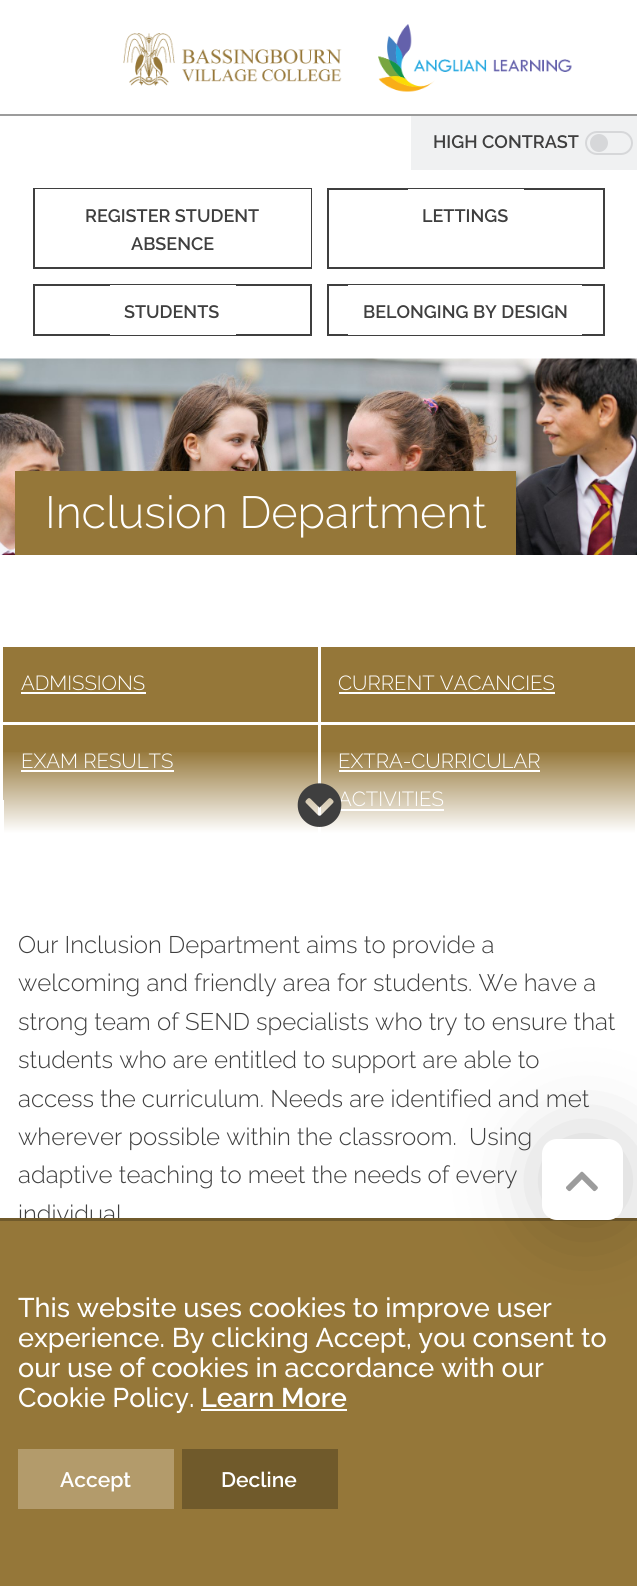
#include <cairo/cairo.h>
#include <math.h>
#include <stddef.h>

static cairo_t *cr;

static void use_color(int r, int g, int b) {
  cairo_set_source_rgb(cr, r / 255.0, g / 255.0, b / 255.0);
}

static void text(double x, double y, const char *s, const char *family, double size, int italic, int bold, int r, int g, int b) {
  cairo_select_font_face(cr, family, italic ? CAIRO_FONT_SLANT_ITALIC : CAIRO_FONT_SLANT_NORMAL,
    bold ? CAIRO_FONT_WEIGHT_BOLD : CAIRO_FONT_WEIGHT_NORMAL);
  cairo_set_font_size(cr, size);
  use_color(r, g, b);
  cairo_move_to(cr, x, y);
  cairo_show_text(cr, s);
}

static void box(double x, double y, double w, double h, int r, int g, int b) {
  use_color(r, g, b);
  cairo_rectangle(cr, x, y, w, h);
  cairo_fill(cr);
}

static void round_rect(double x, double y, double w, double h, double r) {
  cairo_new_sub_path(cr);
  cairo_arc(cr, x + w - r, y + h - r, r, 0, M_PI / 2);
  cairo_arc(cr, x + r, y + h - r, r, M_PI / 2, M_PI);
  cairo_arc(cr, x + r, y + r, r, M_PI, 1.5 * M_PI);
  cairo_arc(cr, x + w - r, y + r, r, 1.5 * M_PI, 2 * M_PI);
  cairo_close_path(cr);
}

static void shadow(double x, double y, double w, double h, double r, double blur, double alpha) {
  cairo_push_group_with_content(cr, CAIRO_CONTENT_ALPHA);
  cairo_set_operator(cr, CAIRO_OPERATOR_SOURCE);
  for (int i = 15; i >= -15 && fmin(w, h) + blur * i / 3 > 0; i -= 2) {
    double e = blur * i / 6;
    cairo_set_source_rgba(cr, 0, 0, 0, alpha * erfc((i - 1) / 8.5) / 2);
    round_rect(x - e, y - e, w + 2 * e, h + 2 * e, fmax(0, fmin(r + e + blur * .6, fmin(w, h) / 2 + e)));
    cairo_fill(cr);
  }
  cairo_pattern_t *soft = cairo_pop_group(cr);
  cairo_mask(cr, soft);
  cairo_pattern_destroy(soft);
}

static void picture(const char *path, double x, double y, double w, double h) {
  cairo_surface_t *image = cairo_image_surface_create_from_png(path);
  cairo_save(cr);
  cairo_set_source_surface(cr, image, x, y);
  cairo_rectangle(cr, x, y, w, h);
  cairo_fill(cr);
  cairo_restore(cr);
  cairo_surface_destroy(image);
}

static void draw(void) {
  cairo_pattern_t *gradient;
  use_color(255, 255, 255);
  cairo_paint(cr);
  picture("img_01.png", 123, 33, 219, 53);
  picture("img_02.png", 378, 24, 194, 68);
  box(0, 114, 637, 2, 156, 156, 156);
  box(411, 116, 226, 54, 240, 241, 242);
  round_rect(586, 132, 46, 22, 11);
  use_color(214, 215, 217);
  cairo_stroke(cr);
  cairo_arc(cr, 599, 143, 9, 0, 2 * M_PI);
  cairo_fill(cr);
  cairo_rectangle(cr, 34, 189, 277, 79);
  use_color(63, 63, 63);
  cairo_stroke(cr);
  box(35, 189, 276, 78, 255, 255, 255);
  cairo_rectangle(cr, 328, 189, 276, 79);
  use_color(63, 63, 63);
  cairo_stroke(cr);
  box(408, 189, 116, 1, 255, 255, 255);
  cairo_rectangle(cr, 34, 285, 277, 50);
  use_color(63, 63, 63);
  cairo_stroke(cr);
  box(110, 285, 126, 50, 255, 255, 255);
  cairo_rectangle(cr, 328, 285, 276, 50);
  use_color(63, 63, 63);
  cairo_stroke(cr);
  box(348, 285, 234, 50, 255, 255, 255);
  picture("img_03.png", 0, 358, 637, 197);
  box(15, 471, 501, 84, 149, 119, 57);
  box(3, 647, 315, 75, 149, 119, 57);
  box(21, 692, 125, 2, 255, 255, 255);
  box(321, 647, 314, 75, 149, 119, 57);
  box(339, 692, 216, 2, 255, 255, 255);
  box(4, 800, 314, 33, 149, 119, 57);
  box(3, 725, 315, 75, 149, 119, 57);
  box(21, 770, 153, 2, 255, 255, 255);
  box(321, 725, 314, 108, 149, 119, 57);
  box(339, 770, 201, 2, 255, 255, 255);
  box(339, 809, 105, 2, 255, 255, 255);
  text(433, 148, "HIGH CONTRAST", "Raleway SemiBold", 18, 0, 0, 63, 63, 63);
  text(85, 222, "REGISTER STUDENT", "Raleway SemiBold", 18, 0, 0, 63, 63, 63);
  text(131, 250, "ABSENCE", "Raleway SemiBold", 18, 0, 0, 63, 63, 63);
  text(422, 222, "LETTINGS", "Raleway SemiBold", 18, 0, 0, 63, 63, 63);
  text(124, 318, "STUDENTS", "Raleway SemiBold", 18, 0, 0, 63, 63, 63);
  text(363, 318, "BELONGING BY DESIGN", "Raleway SemiBold", 18, 0, 0, 63, 63, 63);
  text(45, 528, "Inclusion Department", "Raleway Light", 45, 0, 0, 255, 255, 255);
  text(21, 690, "ADMISSIONS", "Raleway Light", 20.4, 0, 0, 255, 255, 255);
  text(338, 690, "CURRENT VACANCIES", "Raleway Light", 20.4, 0, 0, 255, 255, 255);
  text(21, 768, "EXAM RESULTS", "Raleway Light", 20.4, 0, 0, 255, 255, 255);
  text(338, 768, "EXTRA-CURRICULAR", "Raleway Light", 20.4, 0, 0, 255, 255, 255);
  text(338, 806, "ACTIVITIES", "Raleway Light", 20.4, 0, 0, 255, 255, 255);
  gradient = cairo_pattern_create_linear(319, 833, 319, 750);
  cairo_pattern_add_color_stop_rgba(gradient, 0, 1, 1, 1, 1);
  cairo_pattern_add_color_stop_rgba(gradient, 1, 1, 1, 1, 0);
  cairo_set_source(cr, gradient);
  cairo_pattern_destroy(gradient);
  cairo_rectangle(cr, 3, 752, 632, 81);
  cairo_fill(cr);
  picture("img_04.png", 297, 783, 45, 44);
  text(18, 953, "Our Inclusion Department aims to provide a", "Raleway Light", 24, 0, 0, 63, 63, 63);
  text(18, 991, "welcoming and friendly area for students. We have a", "Raleway Light", 24, 0, 0, 63, 63, 63);
  text(18, 1030, "strong team of SEND specialists who try to ensure that", "Raleway Light", 24, 0, 0, 63, 63, 63);
  text(18, 1068, "students who are entitled to support are able to", "Raleway Light", 24, 0, 0, 63, 63, 63);
  text(18, 1107, "access the curriculum. Needs are identified and met", "Raleway Light", 24, 0, 0, 63, 63, 63);
  text(18, 1145, "wherever possible within the classroom.  Using", "Raleway Light", 24, 0, 0, 63, 63, 63);
  text(18, 1183, "adaptive teaching to meet the needs of every", "Raleway Light", 24, 0, 0, 63, 63, 63);
  text(18, 1222, "individual", "Raleway Light", 24, 0, 0, 63, 63, 63);
  box(0, 1221, 637, 365, 149, 119, 57);
  box(0, 1218, 637, 3, 112, 90, 43);
  use_color(0, 0, 0);
  shadow(545, 1140, 81, 81, 15, 43, 0.21);
  use_color(255, 255, 255);
  round_rect(542, 1139, 81, 81, 15);
  cairo_fill(cr);
  picture("img_05.png", 566, 1171, 32, 21);
  text(18, 1317, "This website uses cookies to improve user", "Raleway Medium", 27, 0, 0, 255, 255, 255);
  text(18, 1347, "experience. By clicking Accept, you consent to", "Raleway Medium", 27, 0, 0, 255, 255, 255);
  text(18, 1377, "our use of cookies in accordance with our", "Raleway Medium", 27, 0, 0, 255, 255, 255);
  text(18, 1407, "Cookie Policy.", "Raleway Medium", 27, 0, 0, 255, 255, 255);
  text(201, 1407, "Learn More", "Raleway SemiBold", 27, 0, 0, 255, 255, 255);
  box(201, 1409, 146, 2, 255, 255, 255);
  box(18, 1449, 156, 60, 179, 155, 107);
  text(60, 1487, "Accept", "Raleway SemiBold", 21, 0, 0, 255, 255, 255);
  box(182, 1449, 156, 60, 112, 90, 43);
  text(221, 1487, "Decline", "Raleway SemiBold", 21, 0, 0, 255, 255, 255);
}

int main(void) {
  cairo_surface_t *surface = cairo_image_surface_create(CAIRO_FORMAT_RGB24, 637, 1586);
  cr = cairo_create(surface);
  cairo_font_options_t *options = cairo_font_options_create();
  cairo_font_options_set_hint_metrics(options, CAIRO_HINT_METRICS_OFF);
  cairo_font_options_set_hint_style(options, CAIRO_HINT_STYLE_NONE);
  cairo_set_font_options(cr, options);
  cairo_set_miter_limit(cr, 4);
  draw();
  cairo_surface_write_to_png(surface, "out.png");
  cairo_font_options_destroy(options);
  cairo_destroy(cr);
  cairo_surface_destroy(surface);
  return 0;
}
